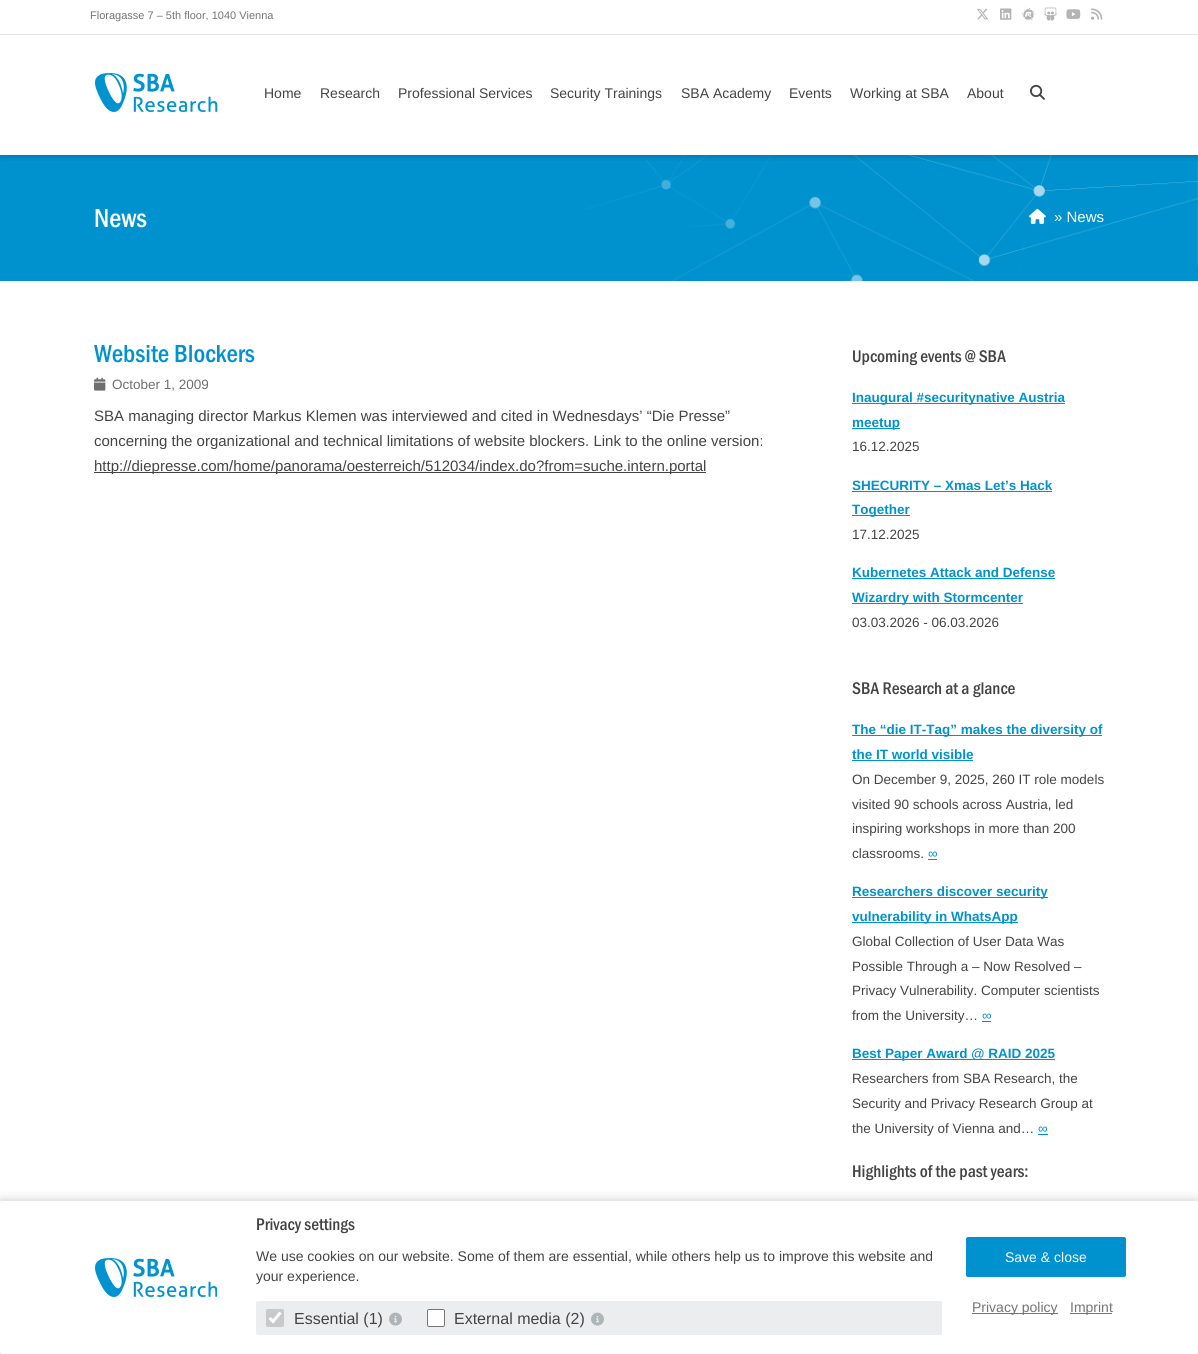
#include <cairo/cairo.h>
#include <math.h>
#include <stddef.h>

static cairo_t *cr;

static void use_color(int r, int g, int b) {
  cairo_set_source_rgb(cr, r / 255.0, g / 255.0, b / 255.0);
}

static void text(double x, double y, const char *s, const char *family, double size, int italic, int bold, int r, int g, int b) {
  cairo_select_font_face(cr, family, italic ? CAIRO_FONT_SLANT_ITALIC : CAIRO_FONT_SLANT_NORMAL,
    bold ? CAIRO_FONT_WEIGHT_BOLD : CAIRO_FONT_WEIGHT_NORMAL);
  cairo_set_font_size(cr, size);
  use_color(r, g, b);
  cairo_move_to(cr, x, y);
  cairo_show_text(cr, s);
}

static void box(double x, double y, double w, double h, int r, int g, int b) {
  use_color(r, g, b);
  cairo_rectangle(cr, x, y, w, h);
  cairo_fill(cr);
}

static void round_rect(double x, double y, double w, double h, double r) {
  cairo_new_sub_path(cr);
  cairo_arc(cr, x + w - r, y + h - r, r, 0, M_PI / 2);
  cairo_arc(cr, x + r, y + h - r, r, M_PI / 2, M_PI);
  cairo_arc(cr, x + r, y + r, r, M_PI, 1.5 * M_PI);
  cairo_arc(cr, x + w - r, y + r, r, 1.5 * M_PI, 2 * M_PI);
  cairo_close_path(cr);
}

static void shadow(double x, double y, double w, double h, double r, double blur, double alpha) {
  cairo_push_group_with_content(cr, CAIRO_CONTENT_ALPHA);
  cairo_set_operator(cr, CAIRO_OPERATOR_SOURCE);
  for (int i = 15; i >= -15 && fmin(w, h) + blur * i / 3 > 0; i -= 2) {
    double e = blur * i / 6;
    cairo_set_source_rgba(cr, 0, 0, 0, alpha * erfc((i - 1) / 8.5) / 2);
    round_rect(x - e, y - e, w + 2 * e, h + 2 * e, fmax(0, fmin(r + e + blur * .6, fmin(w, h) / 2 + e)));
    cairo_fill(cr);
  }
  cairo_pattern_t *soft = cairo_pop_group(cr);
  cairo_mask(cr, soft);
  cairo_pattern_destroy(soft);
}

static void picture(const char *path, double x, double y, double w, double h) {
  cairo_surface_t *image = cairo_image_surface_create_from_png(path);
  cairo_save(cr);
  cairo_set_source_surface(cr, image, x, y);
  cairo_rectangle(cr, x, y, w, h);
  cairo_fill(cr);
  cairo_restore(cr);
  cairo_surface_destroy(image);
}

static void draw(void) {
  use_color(255, 255, 255);
  cairo_paint(cr);
  box(0, 34, 1198, 1, 231, 231, 231);
  picture("img_01.png", 977, 8, 12, 12);
  picture("img_02.png", 1000, 8, 12, 12);
  picture("img_03.png", 1022, 7, 14, 14);
  picture("img_04.png", 1044, 7, 13, 14);
  picture("img_05.png", 1066, 9, 15, 10);
  picture("img_06.png", 1091, 8, 12, 12);
  box(0, 155, 1198, 126, 0, 146, 207);
  picture("img_09.png", 585, 155, 613, 126);
  cairo_save(cr);
  cairo_rectangle(cr, 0, 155, 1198, 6);
  cairo_clip(cr);
  use_color(0, 0, 0);
  shadow(0, 38, 1198, 120, 0, 2.5, 0.15);
  cairo_restore(cr);
  picture("img_07.png", 95, 73, 123, 39);
  picture("img_08.png", 1030, 84, 15, 16);
  picture("img_10.png", 1029, 208, 17, 16);
  picture("img_11.png", 94, 377, 12, 14);
  box(94, 472, 612, 1, 68, 68, 68);
  box(852, 403, 213, 1, 0, 146, 207);
  box(852, 428, 48, 1, 0, 146, 207);
  box(852, 491, 200, 1, 0, 146, 207);
  box(852, 515, 58, 1, 0, 146, 207);
  box(852, 578, 203, 1, 0, 146, 207);
  box(852, 603, 171, 1, 0, 146, 207);
  box(852, 735, 250, 1, 0, 146, 207);
  box(852, 760, 121, 1, 0, 146, 207);
  box(928, 859, 9, 1, 0, 146, 207);
  box(852, 897, 196, 1, 0, 146, 207);
  box(852, 922, 166, 1, 0, 146, 207);
  box(982, 1021, 9, 1, 0, 146, 207);
  box(852, 1059, 203, 1, 0, 146, 207);
  box(1038, 1134, 10, 1, 0, 146, 207);
  use_color(0, 0, 0);
  shadow(0, 1197, 1198, 153, 0, 4, 0.1);
  shadow(0, 1205, 1198, 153, 2, 4, 0.2);
  use_color(255, 255, 255);
  round_rect(0, 1201, 1198, 153, 2);
  cairo_fill(cr);
  picture("img_12.png", 95, 1258, 122, 39);
  use_color(235, 237, 238);
  round_rect(256, 1301, 686, 34, 2);
  cairo_fill(cr);
  use_color(200, 201, 202);
  round_rect(266, 1309, 18, 18, 2);
  cairo_fill(cr);
  cairo_new_path(cr);
  cairo_move_to(cr, 269.5, 1318);
  cairo_line_to(cr, 273, 1321.5);
  cairo_line_to(cr, 280.5, 1312.5);
  use_color(255, 255, 255);
  cairo_set_line_width(cr, 2.9);
  cairo_stroke(cr);
  picture("img_13.png", 389, 1312, 13, 14);
  round_rect(427.5, 1309.5, 17, 17, 1.5);
  cairo_fill_preserve(cr);
  use_color(118, 118, 118);
  cairo_set_line_width(cr, 1);
  cairo_stroke(cr);
  picture("img_13.png", 591, 1312, 13, 14);
  use_color(0, 146, 207);
  round_rect(966, 1237, 160, 40, 2);
  cairo_fill(cr);
  box(972, 1313, 86, 1, 117, 117, 117);
  box(1070, 1313, 42, 1, 117, 117, 117);
  text(90, 19, "Floragasse 7 – 5th floor, 1040 Vienna", "Liberation Sans", 11, 0, 0, 117, 117, 117);
  text(264, 98, "Home", "Liberation Sans", 14, 0, 0, 68, 68, 68);
  text(320, 98, "Research", "Liberation Sans", 14, 0, 0, 68, 68, 68);
  text(398, 98, "Professional Services", "Liberation Sans", 14, 0, 0, 68, 68, 68);
  text(550, 98, "Security Trainings", "Liberation Sans", 14, 0, 0, 68, 68, 68);
  text(681, 98, "SBA Academy", "Liberation Sans", 14, 0, 0, 68, 68, 68);
  text(789, 98, "Events", "Liberation Sans", 14, 0, 0, 68, 68, 68);
  text(850, 98, "Working at SBA", "Liberation Sans", 14, 0, 0, 68, 68, 68);
  text(967, 98, "About", "Liberation Sans", 14, 0, 0, 68, 68, 68);
  text(94, 227, "News", "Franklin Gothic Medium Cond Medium", 27, 0, 0, 255, 255, 255);
  text(1054, 222, "» News", "Liberation Sans", 15, 0, 0, 255, 255, 255);
  text(94, 362, "Website Blockers", "Franklin Gothic Medium Cond Medium", 25.5, 0, 0, 0, 146, 207);
  text(112, 389, "October 1, 2009", "Liberation Sans", 13.5, 0, 0, 111, 111, 111);
  text(94, 421, "SBA managing director Markus Klemen was interviewed and cited in Wednesdays’ “Die Presse”", "Liberation Sans", 15, 0, 0, 68, 68, 68);
  text(94, 446, "concerning the organizational and technical limitations of website blockers. Link to the online version:", "Liberation Sans", 15, 0, 0, 68, 68, 68);
  text(94, 471, "http://diepresse.com/home/panorama/oesterreich/512034/index.do?from=suche.intern.portal", "Liberation Sans", 15, 0, 0, 68, 68, 68);
  text(852, 362, "Upcoming events @ SBA", "Franklin Gothic Medium Cond Medium", 17.5, 0, 0, 68, 68, 68);
  text(852, 402, "Inaugural #securitynative Austria", "Liberation Sans", 13.5, 0, 1, 0, 146, 207);
  text(852, 427, "meetup", "Liberation Sans", 13.5, 0, 1, 0, 146, 207);
  text(852, 451, "16.12.2025", "Liberation Sans", 13.5, 0, 0, 68, 68, 68);
  text(852, 490, "SHECURITY – Xmas Let’s Hack", "Liberation Sans", 13.5, 0, 1, 0, 146, 207);
  text(852, 514, "Together", "Liberation Sans", 13.5, 0, 1, 0, 146, 207);
  text(852, 539, "17.12.2025", "Liberation Sans", 13.5, 0, 0, 68, 68, 68);
  text(852, 577, "Kubernetes Attack and Defense", "Liberation Sans", 13.5, 0, 1, 0, 146, 207);
  text(852, 602, "Wizardry with Stormcenter", "Liberation Sans", 13.5, 0, 1, 0, 146, 207);
  text(852, 627, "03.03.2026 - 06.03.2026", "Liberation Sans", 13.5, 0, 0, 68, 68, 68);
  text(852, 694, "SBA Research at a glance", "Franklin Gothic Medium Cond Medium", 17.5, 0, 0, 68, 68, 68);
  text(852, 734, "The “die IT-Tag” makes the diversity of", "Liberation Sans", 13.5, 0, 1, 0, 146, 207);
  text(852, 759, "the IT world visible", "Liberation Sans", 13.5, 0, 1, 0, 146, 207);
  text(852, 784, "On December 9, 2025, 260 IT role models", "Liberation Sans", 13.5, 0, 0, 68, 68, 68);
  text(852, 809, "visited 90 schools across Austria, led", "Liberation Sans", 13.5, 0, 0, 68, 68, 68);
  text(852, 833, "inspiring workshops in more than 200", "Liberation Sans", 13.5, 0, 0, 68, 68, 68);
  text(852, 858, "classrooms.", "Liberation Sans", 13.5, 0, 0, 68, 68, 68);
  text(928, 858, "∞", "Liberation Sans", 13.5, 0, 0, 0, 146, 207);
  text(852, 896, "Researchers discover security", "Liberation Sans", 13.5, 0, 1, 0, 146, 207);
  text(852, 921, "vulnerability in WhatsApp", "Liberation Sans", 13.5, 0, 1, 0, 146, 207);
  text(852, 946, "Global Collection of User Data Was", "Liberation Sans", 13.5, 0, 0, 68, 68, 68);
  text(852, 971, "Possible Through a – Now Resolved –", "Liberation Sans", 13.5, 0, 0, 68, 68, 68);
  text(852, 995, "Privacy Vulnerability. Computer scientists", "Liberation Sans", 13.5, 0, 0, 68, 68, 68);
  text(852, 1020, "from the University…", "Liberation Sans", 13.5, 0, 0, 68, 68, 68);
  text(982, 1020, "∞", "Liberation Sans", 13.5, 0, 0, 0, 146, 207);
  text(852, 1058, "Best Paper Award @ RAID 2025", "Liberation Sans", 13.5, 0, 1, 0, 146, 207);
  text(852, 1083, "Researchers from SBA Research, the", "Liberation Sans", 13.5, 0, 0, 68, 68, 68);
  text(852, 1108, "Security and Privacy Research Group at", "Liberation Sans", 13.5, 0, 0, 68, 68, 68);
  text(852, 1133, "the University of Vienna and…", "Liberation Sans", 13.5, 0, 0, 68, 68, 68);
  text(1038, 1133, "∞", "Liberation Sans", 13.5, 0, 0, 0, 146, 207);
  text(852, 1177, "Highlights of the past years:", "Franklin Gothic Medium Cond Medium", 17.5, 0, 0, 68, 68, 68);
  text(256, 1230, "Privacy settings", "Franklin Gothic Medium Cond Medium", 17.5, 0, 0, 68, 68, 68);
  text(256, 1261, "We use cookies on our website. Some of them are essential, while others help us to improve this website and", "Liberation Sans", 14, 0, 0, 68, 68, 68);
  text(256, 1281, "your experience.", "Liberation Sans", 14, 0, 0, 68, 68, 68);
  text(294, 1324, "Essential (1)", "Liberation Sans", 16, 0, 0, 68, 68, 68);
  text(454, 1324, "External media (2)", "Liberation Sans", 16, 0, 0, 68, 68, 68);
  text(1005, 1262, "Save & close", "Liberation Sans", 14, 0, 0, 255, 255, 255);
  text(972, 1312, "Privacy policy", "Liberation Sans", 14, 0, 0, 117, 117, 117);
  text(1070, 1312, "Imprint", "Liberation Sans", 14, 0, 0, 117, 117, 117);
}

int main(void) {
  cairo_surface_t *surface = cairo_image_surface_create(CAIRO_FORMAT_RGB24, 1198, 1354);
  cr = cairo_create(surface);
  cairo_font_options_t *options = cairo_font_options_create();
  cairo_font_options_set_hint_metrics(options, CAIRO_HINT_METRICS_OFF);
  cairo_font_options_set_hint_style(options, CAIRO_HINT_STYLE_NONE);
  cairo_set_font_options(cr, options);
  cairo_set_miter_limit(cr, 4);
  draw();
  cairo_surface_write_to_png(surface, "out.png");
  cairo_font_options_destroy(options);
  cairo_destroy(cr);
  cairo_surface_destroy(surface);
  return 0;
}
